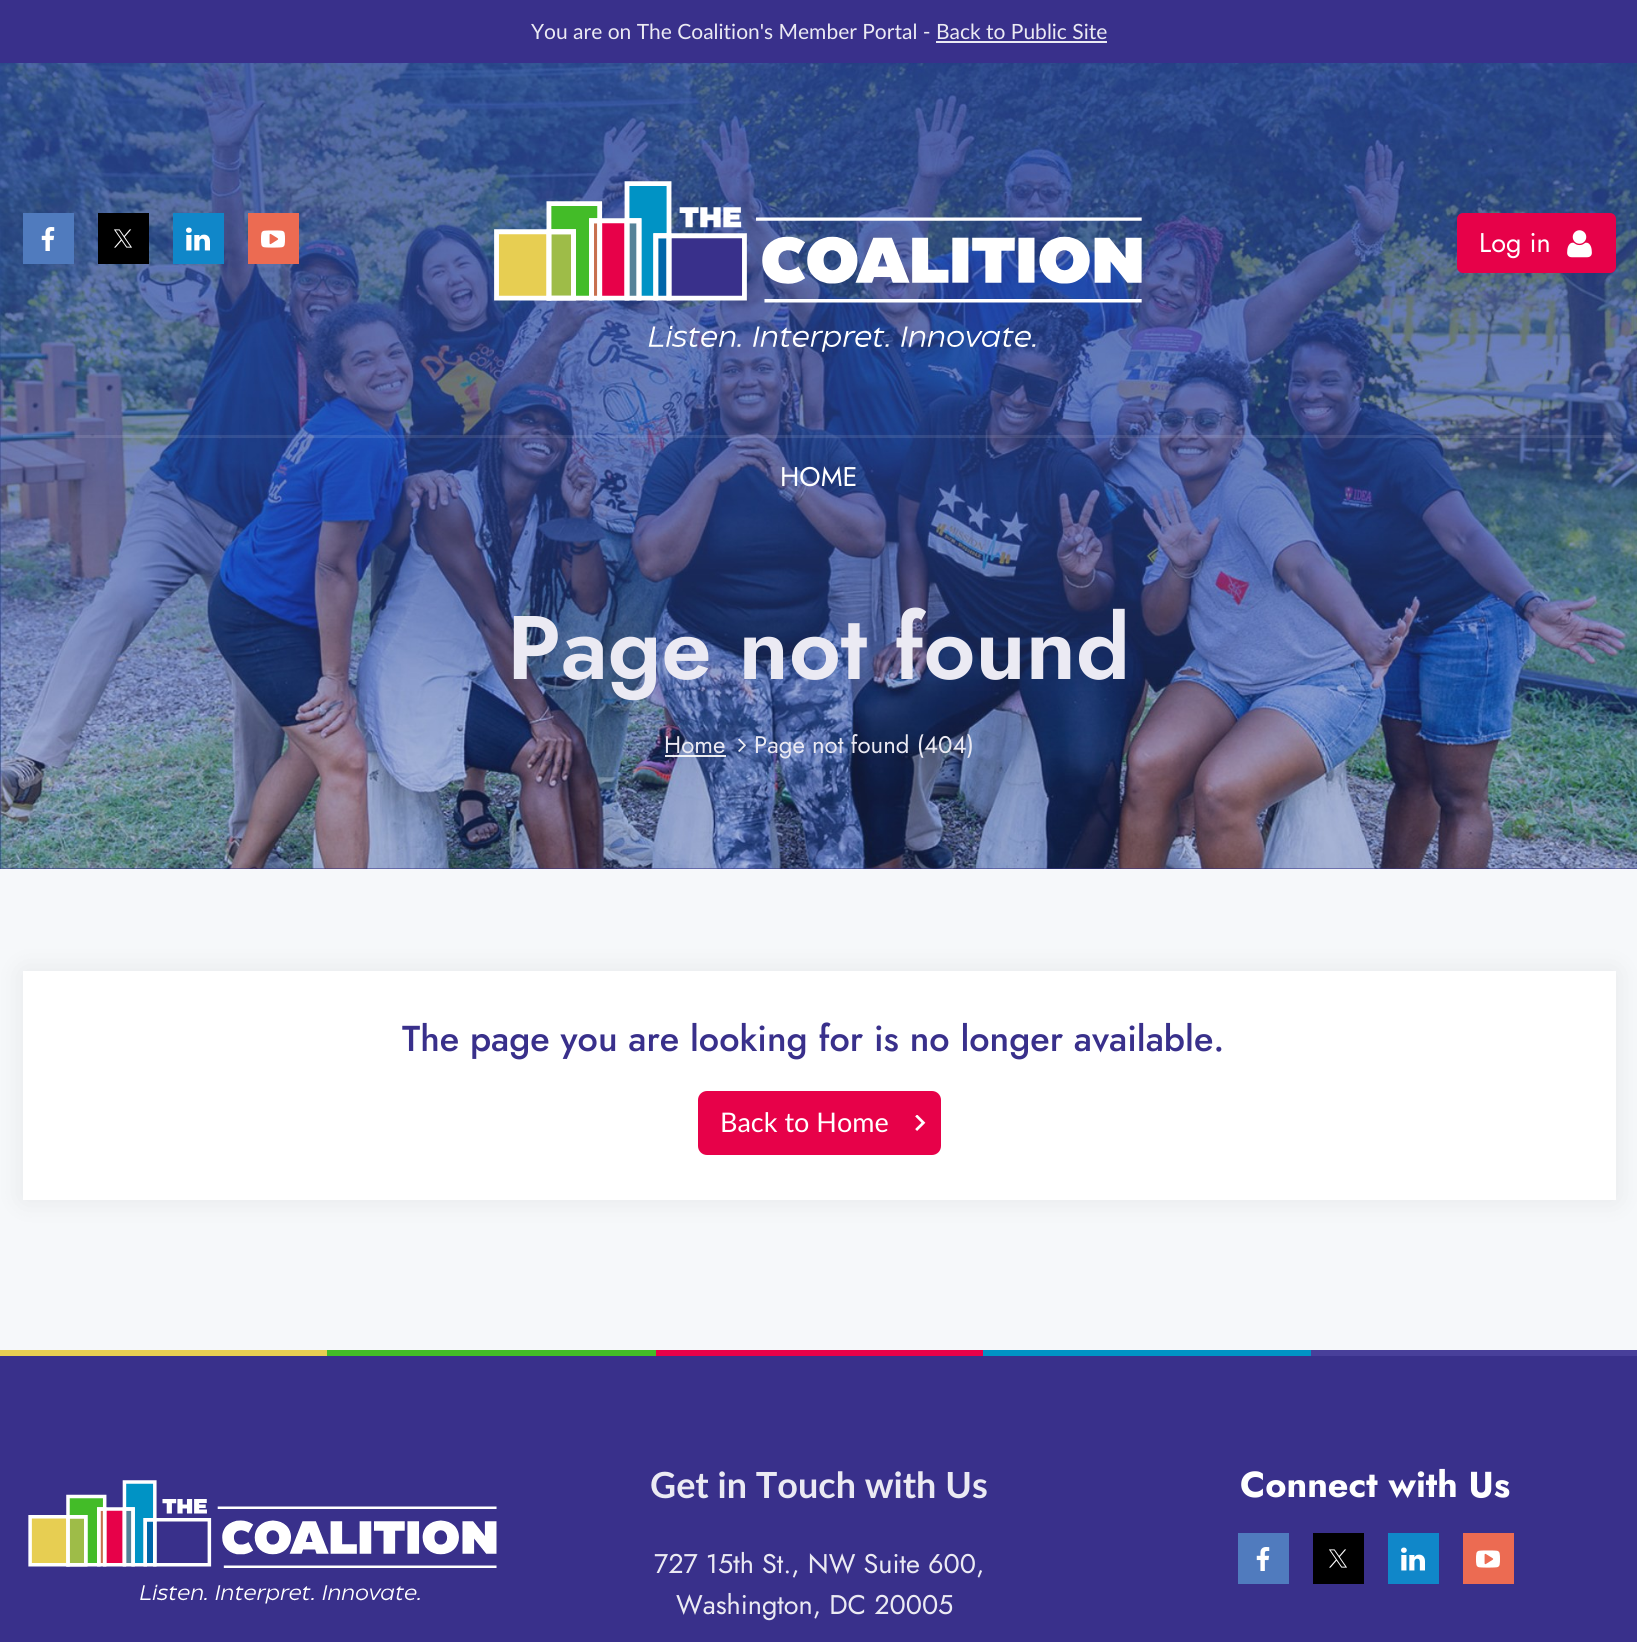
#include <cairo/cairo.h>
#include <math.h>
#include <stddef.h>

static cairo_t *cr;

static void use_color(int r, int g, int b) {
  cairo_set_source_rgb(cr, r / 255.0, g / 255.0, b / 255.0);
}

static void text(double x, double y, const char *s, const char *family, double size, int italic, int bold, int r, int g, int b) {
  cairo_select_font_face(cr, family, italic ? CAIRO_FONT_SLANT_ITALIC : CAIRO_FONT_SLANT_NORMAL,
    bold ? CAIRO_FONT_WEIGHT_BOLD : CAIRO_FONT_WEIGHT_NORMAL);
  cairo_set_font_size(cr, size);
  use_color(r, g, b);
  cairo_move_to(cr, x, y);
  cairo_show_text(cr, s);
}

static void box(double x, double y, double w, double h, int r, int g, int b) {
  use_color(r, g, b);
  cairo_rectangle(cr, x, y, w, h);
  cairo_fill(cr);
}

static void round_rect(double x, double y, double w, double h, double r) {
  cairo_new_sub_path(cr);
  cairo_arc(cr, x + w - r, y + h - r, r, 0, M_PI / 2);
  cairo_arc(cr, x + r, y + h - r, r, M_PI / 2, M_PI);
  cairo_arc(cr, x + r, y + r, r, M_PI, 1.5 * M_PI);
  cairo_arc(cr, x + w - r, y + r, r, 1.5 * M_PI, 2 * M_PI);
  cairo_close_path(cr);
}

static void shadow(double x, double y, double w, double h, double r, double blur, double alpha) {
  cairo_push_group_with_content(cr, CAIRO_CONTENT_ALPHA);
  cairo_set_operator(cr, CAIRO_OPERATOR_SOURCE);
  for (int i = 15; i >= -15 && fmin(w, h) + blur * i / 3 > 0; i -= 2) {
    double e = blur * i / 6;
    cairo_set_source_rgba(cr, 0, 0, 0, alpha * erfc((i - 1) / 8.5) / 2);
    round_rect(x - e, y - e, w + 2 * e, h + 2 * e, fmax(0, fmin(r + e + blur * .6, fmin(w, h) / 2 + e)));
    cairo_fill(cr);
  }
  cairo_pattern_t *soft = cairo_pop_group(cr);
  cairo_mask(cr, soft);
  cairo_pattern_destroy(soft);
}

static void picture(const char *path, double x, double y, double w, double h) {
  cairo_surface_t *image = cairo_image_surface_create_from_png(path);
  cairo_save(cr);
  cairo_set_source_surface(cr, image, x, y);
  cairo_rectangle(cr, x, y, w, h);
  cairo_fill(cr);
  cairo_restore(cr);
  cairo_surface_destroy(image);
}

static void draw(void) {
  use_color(246, 248, 250);
  cairo_paint(cr);
  box(0, 0, 1637, 63, 57, 48, 139);
  box(936, 41, 171, 2, 235, 234, 243);
  box(0, 868, 1637, 1, 57, 48, 139);
  picture("img_01.png", 0, 63, 1637, 806);
  box(23, 213, 51, 51, 80, 123, 190);
  picture("img_02.png", 41, 227, 14, 24);
  box(98, 213, 51, 51, 0, 0, 0);
  picture("img_03.png", 114, 229, 18, 19);
  box(173, 213, 51, 51, 16, 135, 201);
  picture("img_04.png", 186, 227, 24, 24);
  box(248, 213, 51, 51, 236, 107, 82);
  picture("img_05.png", 261, 230, 24, 18);
  picture("img_06.png", 494, 181, 648, 171);
  use_color(231, 1, 73);
  round_rect(1457, 213, 159, 60, 6);
  cairo_fill(cr);
  picture("img_07.png", 1567, 230, 25, 28);
  cairo_set_source_rgba(cr, 1, 1, 1, 0.1);
  cairo_rectangle(cr, 23, 435, 1593, 3);
  cairo_fill(cr);
  cairo_set_source_rgba(cr, 1, 1, 1, 0.9);
  cairo_rectangle(cr, 665, 755, 61, 2);
  cairo_fill(cr);
  picture("img_08.png", 738, 738, 8, 14);
  use_color(0, 0, 0);
  shadow(23, 971, 1593, 229, 0, 15, 0.07);
  box(23, 971, 1593, 229, 255, 255, 255);
  use_color(231, 1, 73);
  round_rect(698, 1091, 243, 64, 9);
  cairo_fill(cr);
  picture("img_09.png", 915, 1115, 11, 16);
  box(0, 1350, 327, 6, 231, 206, 82);
  box(327, 1350, 329, 6, 67, 188, 40);
  box(656, 1350, 327, 6, 231, 1, 73);
  box(983, 1350, 328, 6, 0, 147, 197);
  box(1311, 1350, 326, 6, 72, 63, 154);
  box(0, 1356, 1637, 286, 57, 48, 139);
  picture("img_10.png", 28, 1480, 469, 124);
  box(1238, 1533, 51, 51, 80, 123, 190);
  picture("img_02.png", 1256, 1547, 14, 24);
  box(1313, 1533, 51, 51, 0, 0, 0);
  picture("img_03.png", 1329, 1549, 18, 19);
  box(1388, 1533, 51, 51, 16, 135, 201);
  picture("img_04.png", 1401, 1547, 24, 24);
  box(1463, 1533, 51, 51, 236, 107, 82);
  picture("img_05.png", 1476, 1550, 24, 18);
  text(531, 39, "You are on The Coalition's Member Portal - Back to Public Site", "Lato", 21, 0, 0, 235, 234, 243);
  text(1479, 252, "Log in", "Jost", 27, 0, 0, 255, 255, 255);
  text(780, 486, "HOME", "Jost", 27, 0, 0, 255, 255, 255);
  text(507, 679, "Page not found", "Jost SemiBold", 90, 0, 0, 235, 234, 243);
  text(664, 753, "Home", "Jost", 24, 0, 0, 235, 234, 243);
  text(754, 753, "Page not found (404)", "Jost", 24, 0, 0, 235, 234, 243);
  text(402, 1051, "The page you are looking for is no longer available.", "Jost Medium", 36, 0, 0, 57, 48, 139);
  text(720, 1132, "Back to Home", "Lato", 27, 0, 0, 255, 255, 255);
  text(650, 1498, "Get in Touch with Us", "Lato", 36, 0, 1, 235, 234, 243);
  text(654, 1573, "727 15th St., NW Suite 600,", "Jost", 27, 0, 0, 235, 234, 243);
  text(676, 1614, "Washington, DC 20005", "Jost", 27, 0, 0, 235, 234, 243);
  text(1240, 1497, "Connect with Us", "Jost", 36, 0, 1, 255, 255, 255);
}

int main(void) {
  cairo_surface_t *surface = cairo_image_surface_create(CAIRO_FORMAT_RGB24, 1637, 1642);
  cr = cairo_create(surface);
  cairo_font_options_t *options = cairo_font_options_create();
  cairo_font_options_set_hint_metrics(options, CAIRO_HINT_METRICS_OFF);
  cairo_font_options_set_hint_style(options, CAIRO_HINT_STYLE_NONE);
  cairo_set_font_options(cr, options);
  cairo_set_miter_limit(cr, 4);
  draw();
  cairo_surface_write_to_png(surface, "out.png");
  cairo_font_options_destroy(options);
  cairo_destroy(cr);
  cairo_surface_destroy(surface);
  return 0;
}
